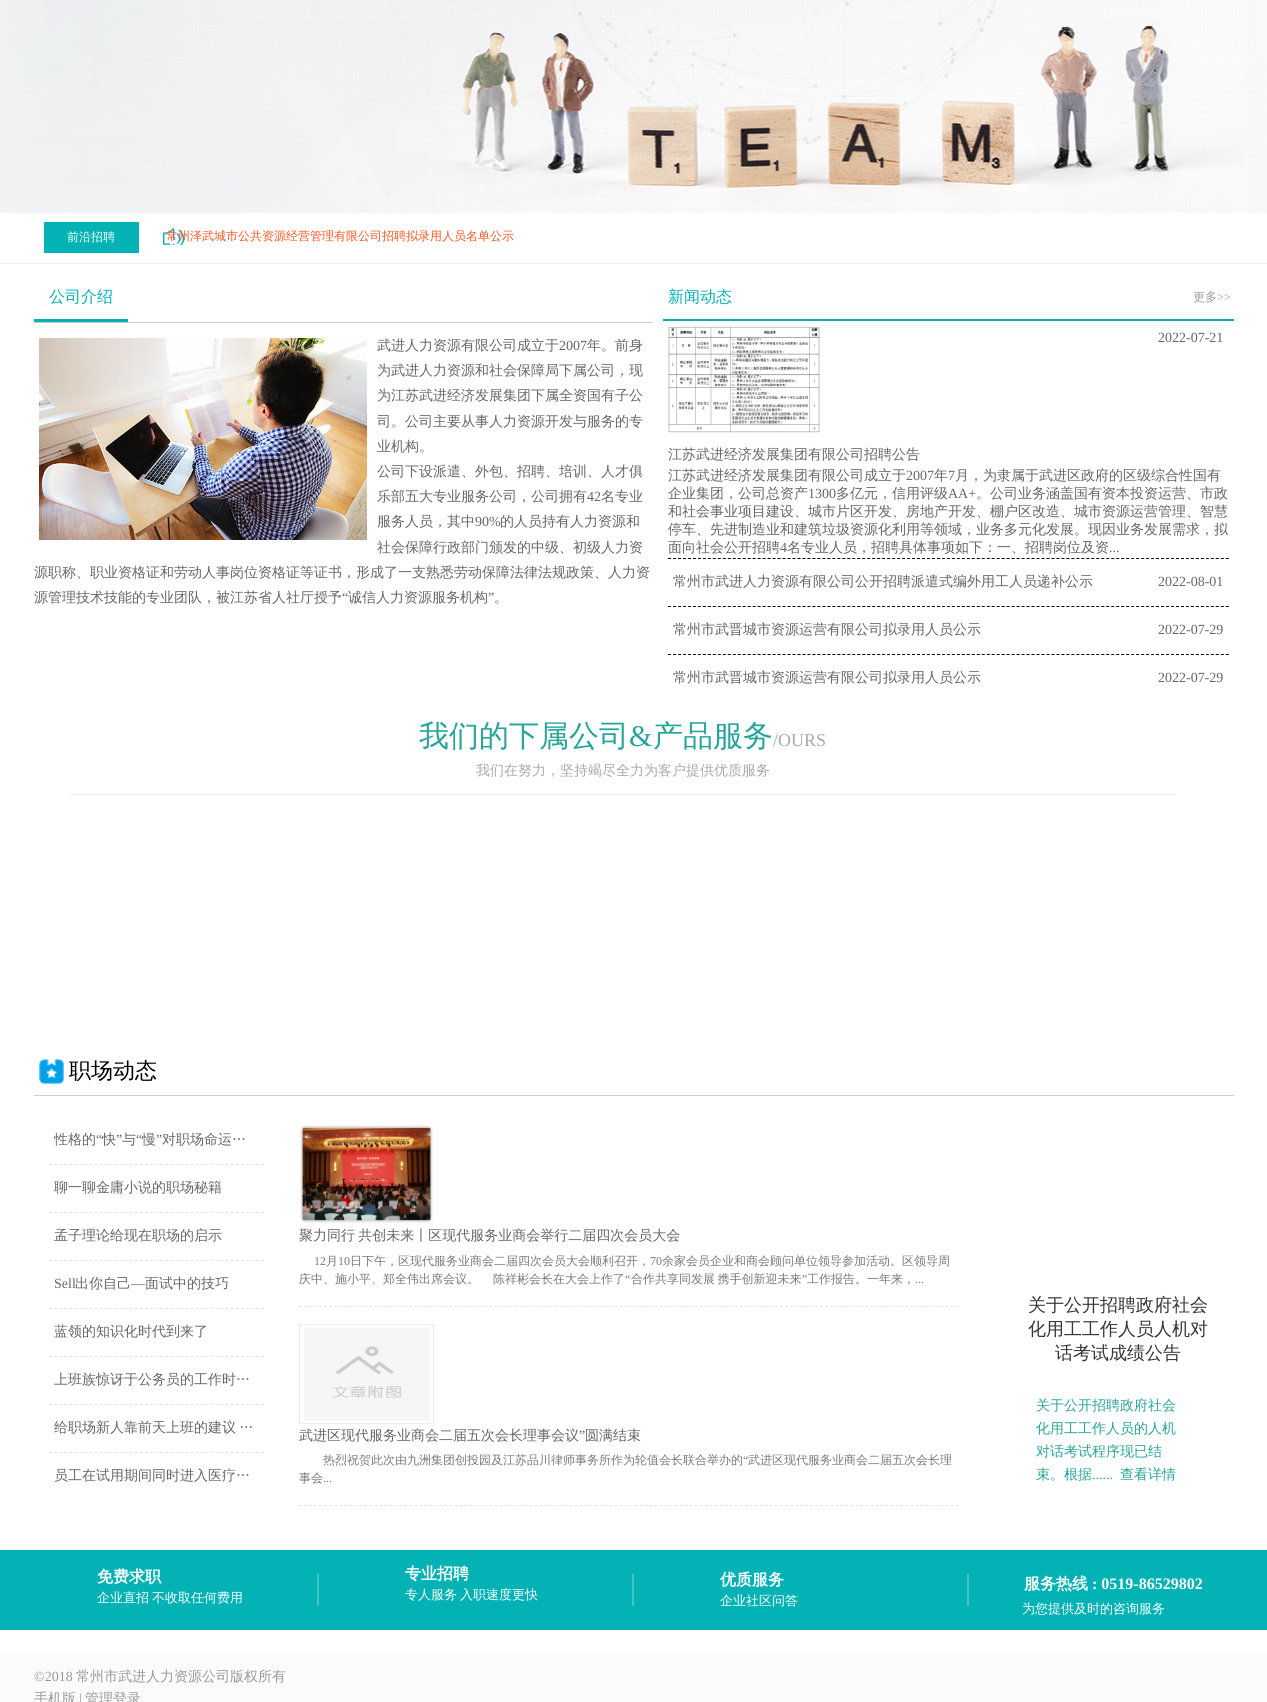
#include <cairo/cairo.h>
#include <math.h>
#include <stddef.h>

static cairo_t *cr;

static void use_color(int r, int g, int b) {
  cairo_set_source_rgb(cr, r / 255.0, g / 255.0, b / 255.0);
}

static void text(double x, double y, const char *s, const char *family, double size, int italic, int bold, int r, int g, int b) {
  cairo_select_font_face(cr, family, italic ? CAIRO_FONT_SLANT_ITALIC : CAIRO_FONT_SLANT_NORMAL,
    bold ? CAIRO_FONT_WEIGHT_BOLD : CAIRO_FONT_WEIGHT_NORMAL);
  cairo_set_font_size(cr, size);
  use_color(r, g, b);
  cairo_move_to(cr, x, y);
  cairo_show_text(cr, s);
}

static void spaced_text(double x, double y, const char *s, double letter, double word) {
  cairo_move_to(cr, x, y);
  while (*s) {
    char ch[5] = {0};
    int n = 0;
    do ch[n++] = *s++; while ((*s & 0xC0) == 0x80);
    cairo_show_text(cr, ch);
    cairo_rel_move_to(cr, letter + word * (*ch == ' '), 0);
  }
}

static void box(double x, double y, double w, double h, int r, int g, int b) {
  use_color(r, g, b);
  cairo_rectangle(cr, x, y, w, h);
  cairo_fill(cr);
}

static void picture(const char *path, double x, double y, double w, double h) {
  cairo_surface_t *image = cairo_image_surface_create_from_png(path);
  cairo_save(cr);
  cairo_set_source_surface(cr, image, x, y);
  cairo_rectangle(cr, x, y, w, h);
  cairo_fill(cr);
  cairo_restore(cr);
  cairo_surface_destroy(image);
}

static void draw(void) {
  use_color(255, 255, 255);
  cairo_paint(cr);
  picture("img_01.png", 0, 0, 1267, 213);
  box(44, 222, 95, 31, 2, 178, 181);
  picture("img_02.png", 163, 228, 21, 17);
  box(0, 263, 1267, 1, 241, 241, 241);
  box(34, 322, 619, 1, 204, 204, 204);
  box(34, 319, 94, 3, 2, 178, 181);
  picture("img_03.png", 39, 338, 328, 202);
  box(663, 319, 571, 2, 2, 178, 181);
  picture("img_04.png", 668, 326, 152, 107);
  cairo_new_path(cr);
  cairo_move_to(cr, 668, 558.5);
  cairo_line_to(cr, 1229, 558.5);
  use_color(0, 0, 0);
  cairo_set_line_width(cr, 1);
  cairo_set_dash(cr, (double[]){3, 1.98}, 2, 0);
  cairo_stroke(cr);
  cairo_new_path(cr);
  cairo_move_to(cr, 668, 606.5);
  cairo_line_to(cr, 1229, 606.5);
  cairo_stroke(cr);
  cairo_new_path(cr);
  cairo_move_to(cr, 668, 654.5);
  cairo_line_to(cr, 1229, 654.5);
  cairo_stroke(cr);
  box(34, 1095, 1200, 1, 204, 204, 204);
  picture("img_05.png", 39, 1059, 25, 25);
  cairo_new_path(cr);
  cairo_move_to(cr, 49, 1164.5);
  cairo_line_to(cr, 264, 1164.5);
  use_color(229, 229, 229);
  cairo_set_dash(cr, (double[]){3, 2.05}, 2, 0);
  cairo_stroke(cr);
  cairo_new_path(cr);
  cairo_move_to(cr, 49, 1212.5);
  cairo_line_to(cr, 264, 1212.5);
  cairo_stroke(cr);
  cairo_new_path(cr);
  cairo_move_to(cr, 49, 1260.5);
  cairo_line_to(cr, 264, 1260.5);
  cairo_stroke(cr);
  cairo_new_path(cr);
  cairo_move_to(cr, 49, 1308.5);
  cairo_line_to(cr, 264, 1308.5);
  cairo_stroke(cr);
  cairo_new_path(cr);
  cairo_move_to(cr, 49, 1356.5);
  cairo_line_to(cr, 264, 1356.5);
  cairo_stroke(cr);
  cairo_new_path(cr);
  cairo_move_to(cr, 49, 1404.5);
  cairo_line_to(cr, 264, 1404.5);
  cairo_stroke(cr);
  cairo_new_path(cr);
  cairo_move_to(cr, 49, 1452.5);
  cairo_line_to(cr, 264, 1452.5);
  cairo_stroke(cr);
  picture("img_06.png", 300, 1125, 133, 98);
  cairo_new_path(cr);
  cairo_move_to(cr, 299, 1306.5);
  cairo_line_to(cr, 958, 1306.5);
  cairo_set_dash(cr, (double[]){3, 2.01}, 2, 0);
  cairo_stroke(cr);
  picture("img_07.png", 299, 1324, 135, 100);
  cairo_new_path(cr);
  cairo_move_to(cr, 299, 1505.5);
  cairo_line_to(cr, 958, 1505.5);
  cairo_stroke(cr);
  picture("img_08.png", 0, 1550, 1267, 80);
  box(0, 1652, 1267, 50, 251, 251, 251);
  text(67, 241, "前沿招聘", "WenQuanYi Zen Hei Medium", 12, 0, 0, 255, 255, 255);
  text(166, 240, "常州泽武城市公共资源经营管理有限公司招聘拟录用人员名单公示", "WenQuanYi Zen Hei Medium", 12, 0, 0, 254, 87, 34);
  text(49, 302, "公司介绍", "WenQuanYi Zen Hei Medium", 16, 0, 0, 2, 178, 181);
  text(377, 350, "武进人力资源有限公司成立于", "WenQuanYi Zen Hei Medium", 14, 0, 0, 102, 102, 102);
  text(559, 350, "2007", "Liberation Serif", 14, 0, 0, 102, 102, 102);
  text(587, 350, "年。前身", "WenQuanYi Zen Hei Medium", 14, 0, 0, 102, 102, 102);
  text(377, 375, "为武进人力资源和社会保障局下属公司，现", "WenQuanYi Zen Hei Medium", 14, 0, 0, 102, 102, 102);
  text(377, 400, "为江苏武进经济发展集团下属全资国有子公", "WenQuanYi Zen Hei Medium", 14, 0, 0, 102, 102, 102);
  text(377, 426, "司。公司主要从事人力资源开发与服务的专", "WenQuanYi Zen Hei Medium", 14, 0, 0, 102, 102, 102);
  text(377, 451, "业机构。", "WenQuanYi Zen Hei Medium", 14, 0, 0, 102, 102, 102);
  text(377, 476, "公司下设派遣、外包、招聘、培训、人才俱", "WenQuanYi Zen Hei Medium", 14, 0, 0, 102, 102, 102);
  text(377, 501, "乐部五大专业服务公司，公司拥有", "WenQuanYi Zen Hei Medium", 14, 0, 0, 102, 102, 102);
  text(587, 501, "42", "Liberation Serif", 14, 0, 0, 102, 102, 102);
  text(601, 501, "名专业", "WenQuanYi Zen Hei Medium", 14, 0, 0, 102, 102, 102);
  text(377, 526, "服务人员，其中", "WenQuanYi Zen Hei Medium", 14, 0, 0, 102, 102, 102);
  text(475, 526, "90%", "Liberation Serif", 14, 0, 0, 102, 102, 102);
  text(500, 526, "的人员持有人力资源和", "WenQuanYi Zen Hei Medium", 14, 0, 0, 102, 102, 102);
  text(377, 552, "社会保障行政部门颁发的中级、初级人力资", "WenQuanYi Zen Hei Medium", 14, 0, 0, 102, 102, 102);
  text(34, 577, "源职称、职业资格证和劳动人事岗位资格证等证书，形成了一支熟悉劳动保障法律法规政策、人力资", "WenQuanYi Zen Hei Medium", 14, 0, 0, 102, 102, 102);
  text(34, 602, "源管理技术技能的专业团队，被江苏省人社厅授予", "WenQuanYi Zen Hei Medium", 14, 0, 0, 102, 102, 102);
  text(342, 602, "“", "Liberation Serif", 14, 0, 0, 102, 102, 102);
  text(348, 602, "诚信人力资源服务机构", "WenQuanYi Zen Hei Medium", 14, 0, 0, 102, 102, 102);
  text(488, 602, "”", "Liberation Serif", 14, 0, 0, 102, 102, 102);
  text(494, 602, "。", "WenQuanYi Zen Hei Medium", 14, 0, 0, 102, 102, 102);
  text(668, 302, "新闻动态", "WenQuanYi Zen Hei Medium", 16, 0, 0, 2, 178, 181);
  text(1193, 301, "更多", "WenQuanYi Zen Hei Medium", 12, 0, 0, 153, 153, 153);
  text(1217, 301, ">>", "Liberation Serif", 12, 0, 0, 153, 153, 153);
  text(1158, 342, "2022-07-21", "Liberation Serif", 14, 0, 0, 102, 102, 102);
  text(668, 459, "江苏武进经济发展集团有限公司招聘公告", "WenQuanYi Zen Hei Medium", 14, 0, 0, 102, 102, 102);
  text(668, 480, "江苏武进经济发展集团有限公司成立于", "WenQuanYi Zen Hei Medium", 14, 0, 0, 102, 102, 102);
  text(906, 480, "2007", "Liberation Serif", 14, 0, 0, 102, 102, 102);
  text(934, 480, "年", "WenQuanYi Zen Hei Medium", 14, 0, 0, 102, 102, 102);
  text(948, 480, "7", "Liberation Serif", 14, 0, 0, 102, 102, 102);
  text(955, 480, "月，为隶属于武进区政府的区级综合性国有", "WenQuanYi Zen Hei Medium", 14, 0, 0, 102, 102, 102);
  text(668, 498, "企业集团，公司总资产", "WenQuanYi Zen Hei Medium", 14, 0, 0, 102, 102, 102);
  text(808, 498, "1300", "Liberation Serif", 14, 0, 0, 102, 102, 102);
  text(836, 498, "多亿元，信用评级", "WenQuanYi Zen Hei Medium", 14, 0, 0, 102, 102, 102);
  text(948, 498, "AA+", "Liberation Serif", 14, 0, 0, 102, 102, 102);
  text(976, 498, "。公司业务涵盖国有资本投资运营、市政", "WenQuanYi Zen Hei Medium", 14, 0, 0, 102, 102, 102);
  text(668, 516, "和社会事业项目建设、城市片区开发、房地产开发、棚户区改造、城市资源运营管理、智慧", "WenQuanYi Zen Hei Medium", 14, 0, 0, 102, 102, 102);
  text(668, 534, "停车、先进制造业和建筑垃圾资源化利用等领域，业务多元化发展。现因业务发展需求，拟", "WenQuanYi Zen Hei Medium", 14, 0, 0, 102, 102, 102);
  text(668, 552, "面向社会公开招聘", "WenQuanYi Zen Hei Medium", 14, 0, 0, 102, 102, 102);
  text(780, 552, "4", "Liberation Serif", 14, 0, 0, 102, 102, 102);
  text(787, 552, "名专业人员，招聘具体事项如下：一、招聘岗位及资", "WenQuanYi Zen Hei Medium", 14, 0, 0, 102, 102, 102);
  text(1109, 552, "...", "Liberation Serif", 14, 0, 0, 102, 102, 102);
  text(673, 586, "常州市武进人力资源有限公司公开招聘派遣式编外用工人员递补公示", "WenQuanYi Zen Hei Medium", 14, 0, 0, 102, 102, 102);
  text(1158, 586, "2022-08-01", "Liberation Serif", 14, 0, 0, 102, 102, 102);
  text(673, 634, "常州市武晋城市资源运营有限公司拟录用人员公示", "WenQuanYi Zen Hei Medium", 14, 0, 0, 102, 102, 102);
  text(1158, 634, "2022-07-29", "Liberation Serif", 14, 0, 0, 102, 102, 102);
  text(673, 682, "常州市武晋城市资源运营有限公司拟录用人员公示", "WenQuanYi Zen Hei Medium", 14, 0, 0, 102, 102, 102);
  text(1158, 682, "2022-07-29", "Liberation Serif", 14, 0, 0, 102, 102, 102);
  text(419, 746, "我们的下属公司", "WenQuanYi Zen Hei Medium", 30, 0, 0, 38, 165, 154);
  text(629, 746, "&", "Liberation Serif", 30, 0, 0, 38, 165, 154);
  text(653, 746, "产品服务", "WenQuanYi Zen Hei Medium", 30, 0, 0, 38, 165, 154);
  text(773, 746, "/OURS", "Liberation Serif", 18, 0, 0, 169, 169, 169);
  text(476, 775, "我们在努力，坚持竭尽全力为客户提供优质服务", "WenQuanYi Zen Hei Medium", 14, 0, 0, 169, 169, 169);
  text(70, 798, "———————————————————————————————————————————————————————————————————————————————", "Liberation Serif", 14, 0, 0, 222, 222, 222);
  text(69, 1078, "职场动态", "WenQuanYi Zen Hei Medium", 22, 0, 0, 0, 0, 0);
  cairo_save(cr);
  cairo_rectangle(cr, 54, 1128, 205, 24);
  cairo_clip(cr);
  text(54, 1144, "性格的", "WenQuanYi Zen Hei Medium", 14, 0, 0, 102, 102, 102);
  cairo_restore(cr);
  text(96, 1144, "“", "Liberation Serif", 14, 0, 0, 102, 102, 102);
  text(102, 1144, "快", "WenQuanYi Zen Hei Medium", 14, 0, 0, 102, 102, 102);
  text(116, 1144, "”", "Liberation Serif", 14, 0, 0, 102, 102, 102);
  text(122, 1144, "与", "WenQuanYi Zen Hei Medium", 14, 0, 0, 102, 102, 102);
  text(136, 1144, "“", "Liberation Serif", 14, 0, 0, 102, 102, 102);
  text(142, 1144, "慢", "WenQuanYi Zen Hei Medium", 14, 0, 0, 102, 102, 102);
  text(156, 1144, "”", "Liberation Serif", 14, 0, 0, 102, 102, 102);
  text(162, 1144, "对职场命运…", "WenQuanYi Zen Hei Medium", 14, 0, 0, 102, 102, 102);
  cairo_save(cr);
  cairo_rectangle(cr, 54, 1176, 205, 24);
  cairo_clip(cr);
  text(54, 1192, "聊一聊金庸小说的职场秘籍", "WenQuanYi Zen Hei Medium", 14, 0, 0, 102, 102, 102);
  cairo_restore(cr);
  text(54, 1240, "孟子理论给现在职场的启示", "WenQuanYi Zen Hei Medium", 14, 0, 0, 102, 102, 102);
  text(54, 1288, "Sell", "Liberation Serif", 14, 0, 0, 102, 102, 102);
  text(75, 1288, "出你自己", "WenQuanYi Zen Hei Medium", 14, 0, 0, 102, 102, 102);
  text(131, 1288, "—", "Liberation Serif", 14, 0, 0, 102, 102, 102);
  text(145, 1288, "面试中的技巧", "WenQuanYi Zen Hei Medium", 14, 0, 0, 102, 102, 102);
  cairo_save(cr);
  cairo_rectangle(cr, 54, 1320, 205, 24);
  cairo_clip(cr);
  text(54, 1336, "蓝领的知识化时代到来了", "WenQuanYi Zen Hei Medium", 14, 0, 0, 102, 102, 102);
  cairo_restore(cr);
  text(54, 1384, "上班族惊讶于公务员的工作时…", "WenQuanYi Zen Hei Medium", 14, 0, 0, 102, 102, 102);
  spaced_text(54, 1432, "给职场新人靠前天上班的建议 …", 0, -1);
  text(54, 1480, "员工在试用期间同时进入医疗…", "WenQuanYi Zen Hei Medium", 14, 0, 0, 102, 102, 102);
  spaced_text(299, 1240, "聚力同行 共创未来丨区现代服务业商会举行二届四次会员大会", 0, -1);
  text(314, 1265, "12", "Liberation Serif", 12, 0, 0, 121, 121, 121);
  text(326, 1265, "月", "WenQuanYi Zen Hei Medium", 12, 0, 0, 121, 121, 121);
  text(338, 1265, "10", "Liberation Serif", 12, 0, 0, 121, 121, 121);
  text(350, 1265, "日下午，区现代服务业商会二届四次会员大会顺利召开，", "WenQuanYi Zen Hei Medium", 12, 0, 0, 121, 121, 121);
  text(650, 1265, "70", "Liberation Serif", 12, 0, 0, 121, 121, 121);
  text(662, 1265, "余家会员企业和商会顾问单位领导参加活动。区领导周", "WenQuanYi Zen Hei Medium", 12, 0, 0, 121, 121, 121);
  text(299, 1283, "庆中、施小平、郑全伟出席会议。", "WenQuanYi Zen Hei Medium", 12, 0, 0, 121, 121, 121);
  text(493, 1283, "陈祥彬会长在大会上作了", "WenQuanYi Zen Hei Medium", 12, 0, 0, 121, 121, 121);
  text(625, 1283, "“", "Liberation Serif", 12, 0, 0, 121, 121, 121);
  cairo_select_font_face(cr, "WenQuanYi Zen Hei Medium", CAIRO_FONT_SLANT_NORMAL, CAIRO_FONT_WEIGHT_NORMAL);
  spaced_text(631, 1283, "合作共享同发展 携手创新迎未来", 0, -1);
  text(802, 1283, "”", "Liberation Serif", 12, 0, 0, 121, 121, 121);
  text(807, 1283, "工作报告。一年来，", "WenQuanYi Zen Hei Medium", 12, 0, 0, 121, 121, 121);
  text(915, 1283, "...", "Liberation Serif", 12, 0, 0, 121, 121, 121);
  cairo_save(cr);
  cairo_rectangle(cr, 299, 1424, 659, 23);
  cairo_clip(cr);
  text(299, 1440, "武进区现代服务业商会二届五次会长理事会议", "WenQuanYi Zen Hei Medium", 14, 0, 0, 102, 102, 102);
  cairo_restore(cr);
  text(579, 1440, "”", "Liberation Serif", 14, 0, 0, 102, 102, 102);
  text(585, 1440, "圆满结束", "WenQuanYi Zen Hei Medium", 14, 0, 0, 102, 102, 102);
  text(323, 1464, "热烈祝贺此次由九洲集团创投园及江苏品川律师事务所作为轮值会长联合举办的", "WenQuanYi Zen Hei Medium", 12, 0, 0, 121, 121, 121);
  text(743, 1464, "“", "Liberation Serif", 12, 0, 0, 121, 121, 121);
  text(748, 1464, "武进区现代服务业商会二届五次会长理", "WenQuanYi Zen Hei Medium", 12, 0, 0, 121, 121, 121);
  text(299, 1482, "事会", "WenQuanYi Zen Hei Medium", 12, 0, 0, 121, 121, 121);
  text(323, 1482, "...", "Liberation Serif", 12, 0, 0, 121, 121, 121);
  text(1028, 1311, "关于公开招聘政府社会", "WenQuanYi Zen Hei Medium", 18, 0, 0, 53, 53, 53);
  text(1028, 1335, "化用工工作人员人机对", "WenQuanYi Zen Hei Medium", 18, 0, 0, 53, 53, 53);
  text(1055, 1359, "话考试成绩公告", "WenQuanYi Zen Hei Medium", 18, 0, 0, 53, 53, 53);
  text(1036, 1410, "关于公开招聘政府社会", "WenQuanYi Zen Hei Medium", 14, 0, 0, 38, 165, 154);
  text(1036, 1433, "化用工工作人员的人机", "WenQuanYi Zen Hei Medium", 14, 0, 0, 38, 165, 154);
  text(1036, 1456, "对话考试程序现已结", "WenQuanYi Zen Hei Medium", 14, 0, 0, 38, 165, 154);
  text(1036, 1479, "束。根据", "WenQuanYi Zen Hei Medium", 14, 0, 0, 38, 165, 154);
  text(1092, 1479, "......", "Liberation Serif", 14, 0, 0, 38, 165, 154);
  text(1120, 1479, "查看详情", "WenQuanYi Zen Hei Medium", 14, 0, 0, 38, 165, 154);
  text(97, 1582, "免费求职", "WenQuanYi Zen Hei", 16, 0, 1, 255, 255, 255);
  text(405, 1579, "专业招聘", "WenQuanYi Zen Hei", 16, 0, 1, 255, 255, 255);
  text(720, 1585, "优质服务", "WenQuanYi Zen Hei", 16, 0, 1, 255, 255, 255);
  text(1024, 1589, "服务热线", "WenQuanYi Zen Hei", 16, 0, 1, 255, 255, 255);
  text(1092, 1589, ": 0519-86529802", "Liberation Serif", 16, 0, 1, 255, 255, 255);
  text(97, 1602, "企业直招", "WenQuanYi Zen Hei Medium", 13, 0, 0, 255, 255, 255);
  text(152, 1602, "不收取任何费用", "WenQuanYi Zen Hei Medium", 13, 0, 0, 255, 255, 255);
  spaced_text(405, 1599, "专人服务 入职速度更快", 0, -1);
  text(720, 1605, "企业社区问答", "WenQuanYi Zen Hei Medium", 13, 0, 0, 255, 255, 255);
  text(1022, 1613, "为您提供及时的咨询服务", "WenQuanYi Zen Hei Medium", 13, 0, 0, 255, 255, 255);
  text(34, 1681, "©2018", "Liberation Serif", 14, 0, 0, 153, 153, 153);
  text(76, 1681, "常州市武进人力资源公司版权所有", "WenQuanYi Zen Hei Medium", 14, 0, 0, 153, 153, 153);
  text(34, 1703, "手机版", "WenQuanYi Zen Hei Medium", 14, 0, 0, 153, 153, 153);
  text(79, 1703, "|", "Liberation Serif", 14, 0, 0, 153, 153, 153);
  text(85, 1703, "管理登录", "WenQuanYi Zen Hei Medium", 14, 0, 0, 153, 153, 153);
}

int main(void) {
  cairo_surface_t *surface = cairo_image_surface_create(CAIRO_FORMAT_RGB24, 1267, 1702);
  cr = cairo_create(surface);
  cairo_font_options_t *options = cairo_font_options_create();
  cairo_font_options_set_hint_metrics(options, CAIRO_HINT_METRICS_OFF);
  cairo_font_options_set_hint_style(options, CAIRO_HINT_STYLE_NONE);
  cairo_set_font_options(cr, options);
  cairo_set_miter_limit(cr, 4);
  draw();
  cairo_surface_write_to_png(surface, "out.png");
  cairo_font_options_destroy(options);
  cairo_destroy(cr);
  cairo_surface_destroy(surface);
  return 0;
}
